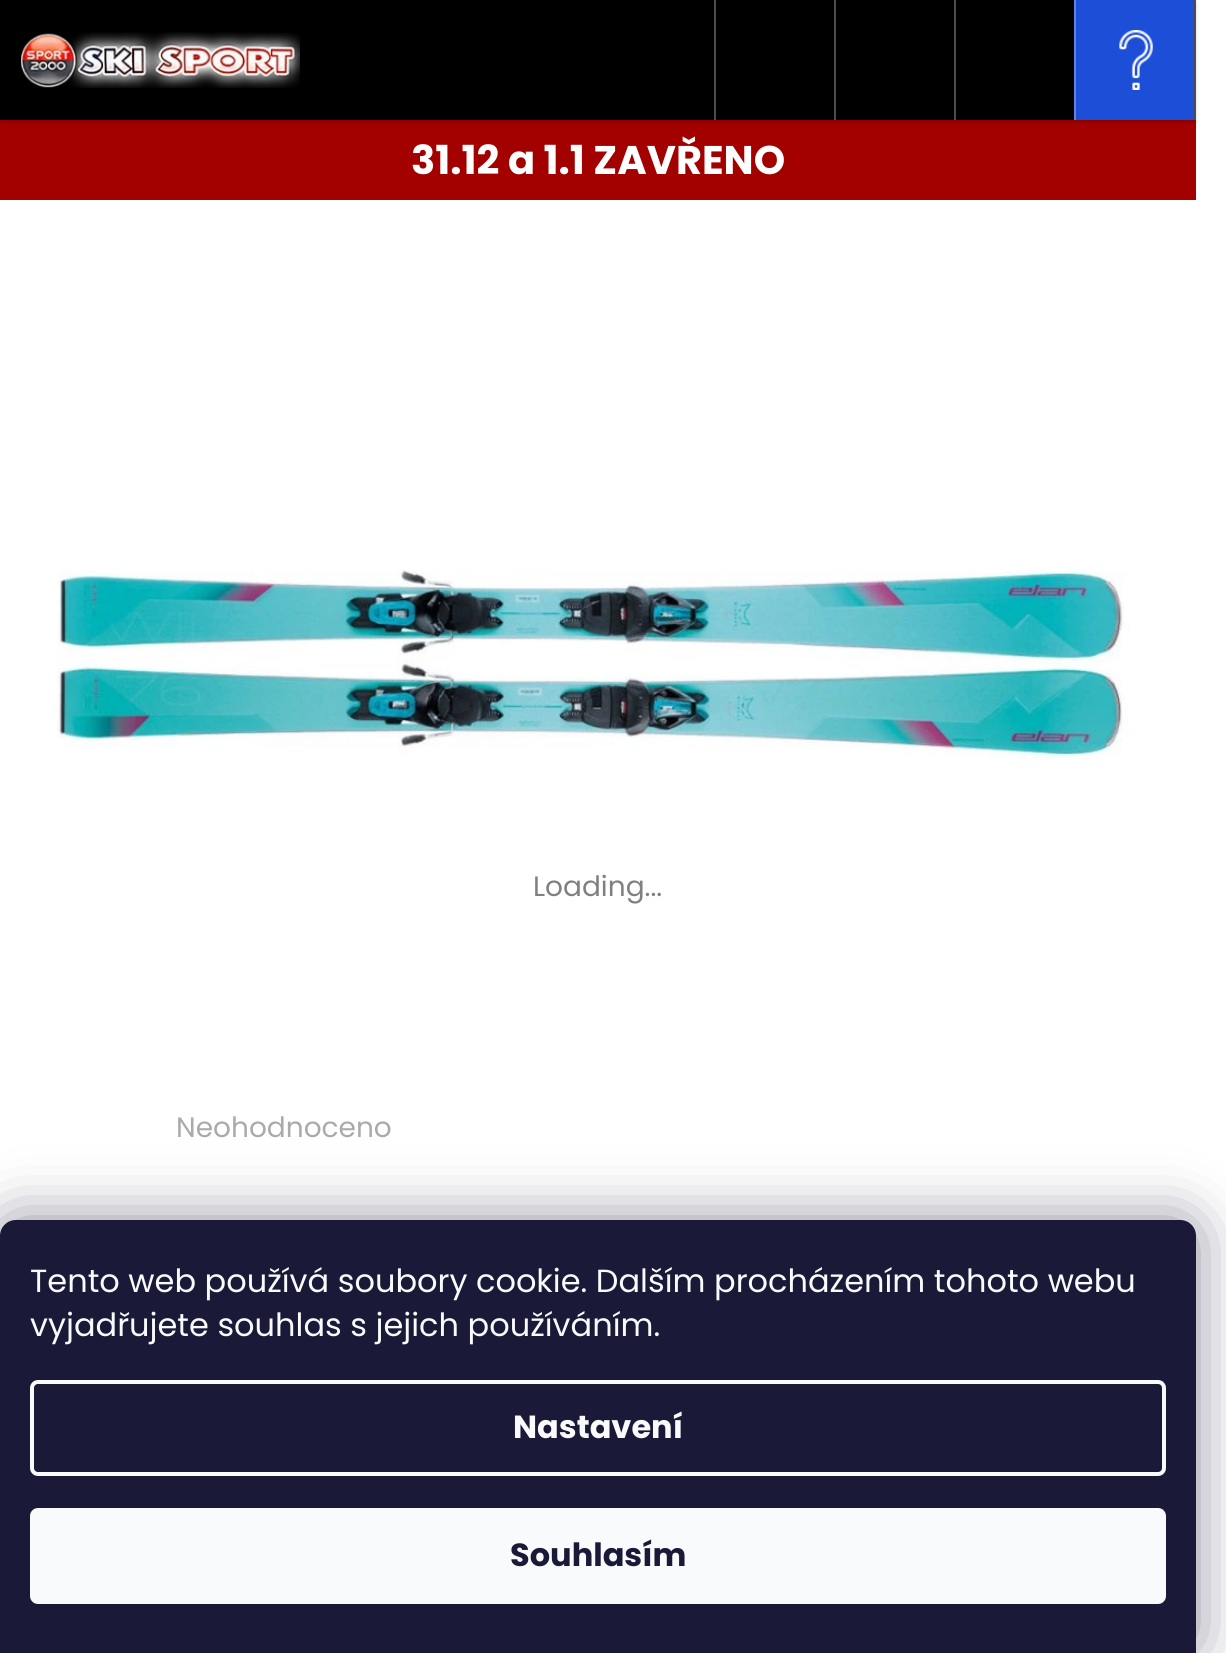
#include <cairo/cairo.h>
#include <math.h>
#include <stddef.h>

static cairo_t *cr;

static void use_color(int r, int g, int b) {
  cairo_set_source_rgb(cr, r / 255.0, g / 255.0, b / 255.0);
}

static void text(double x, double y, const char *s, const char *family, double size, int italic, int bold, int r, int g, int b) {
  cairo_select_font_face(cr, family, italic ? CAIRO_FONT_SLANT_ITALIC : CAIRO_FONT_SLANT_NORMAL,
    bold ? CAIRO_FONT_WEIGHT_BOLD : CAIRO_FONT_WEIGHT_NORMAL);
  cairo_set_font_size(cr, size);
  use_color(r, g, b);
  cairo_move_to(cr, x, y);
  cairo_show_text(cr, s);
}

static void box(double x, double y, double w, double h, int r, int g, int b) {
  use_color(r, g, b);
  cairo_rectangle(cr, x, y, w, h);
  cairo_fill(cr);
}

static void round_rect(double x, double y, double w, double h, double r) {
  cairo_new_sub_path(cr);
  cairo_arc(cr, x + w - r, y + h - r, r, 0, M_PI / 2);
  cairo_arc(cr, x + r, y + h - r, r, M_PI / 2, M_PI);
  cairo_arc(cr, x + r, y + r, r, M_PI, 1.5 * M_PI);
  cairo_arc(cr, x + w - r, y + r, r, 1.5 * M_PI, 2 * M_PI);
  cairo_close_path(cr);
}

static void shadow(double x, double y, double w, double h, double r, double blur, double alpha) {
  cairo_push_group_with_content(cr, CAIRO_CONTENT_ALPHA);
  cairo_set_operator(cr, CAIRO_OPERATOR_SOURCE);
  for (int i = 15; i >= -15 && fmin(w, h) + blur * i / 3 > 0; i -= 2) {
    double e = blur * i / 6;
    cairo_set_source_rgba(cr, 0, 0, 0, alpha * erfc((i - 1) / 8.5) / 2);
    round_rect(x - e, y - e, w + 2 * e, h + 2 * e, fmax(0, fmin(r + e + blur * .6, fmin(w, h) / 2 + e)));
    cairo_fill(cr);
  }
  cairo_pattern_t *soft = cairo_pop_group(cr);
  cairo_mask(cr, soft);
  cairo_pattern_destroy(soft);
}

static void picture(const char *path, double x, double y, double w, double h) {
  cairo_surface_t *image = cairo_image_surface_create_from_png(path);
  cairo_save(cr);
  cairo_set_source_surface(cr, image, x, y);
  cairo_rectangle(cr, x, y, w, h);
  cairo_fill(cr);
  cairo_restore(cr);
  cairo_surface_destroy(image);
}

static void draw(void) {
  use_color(255, 255, 255);
  cairo_paint(cr);
  box(0, 120, 1196, 80, 163, 0, 0);
  use_color(0, 0, 0);
  shadow(0, 2, 1196, 120, 0, 2, 0.16);
  box(0, 0, 1074, 120, 0, 0, 0);
  picture("img_01.png", 21, 32, 279, 56);
  box(1194, 0, 2, 120, 77, 77, 77);
  box(714, 0, 2, 120, 77, 77, 77);
  box(834, 0, 2, 120, 77, 77, 77);
  box(954, 0, 2, 120, 77, 77, 77);
  box(1076, 0, 118, 120, 29, 78, 216);
  box(1074, 0, 2, 120, 97, 131, 228);
  picture("img_02.png", 1119, 30, 34, 60);
  picture("img_03.png", 57, 569, 1073, 191);
  use_color(27, 25, 57);
  shadow(0, 1220, 1196, 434, 16, 30, 0.5);
  use_color(26, 25, 55);
  cairo_new_path(cr);
  cairo_move_to(cr, 16, 1220);
  cairo_line_to(cr, 1180, 1220);
  cairo_curve_to(cr, 1189, 1220, 1196, 1227, 1196, 1236);
  cairo_line_to(cr, 1196, 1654);
  cairo_line_to(cr, 0, 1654);
  cairo_line_to(cr, 0, 1236);
  cairo_curve_to(cr, 0, 1227, 7, 1220, 16, 1220);
  cairo_close_path(cr);
  cairo_fill(cr);
  round_rect(32, 1382, 1132, 92, 6);
  use_color(248, 250, 251);
  cairo_set_line_width(cr, 4);
  cairo_stroke(cr);
  round_rect(30, 1508, 1136, 96, 8);
  cairo_fill(cr);
  text(411, 174, "31.12 a 1.1 ZAVŘENO", "Poppins", 40, 0, 1, 255, 255, 255);
  text(533, 896, "Loading...", "Poppins", 28, 0, 0, 128, 128, 128);
  text(176, 1137, "Neohodnoceno", "Poppins", 28, 0, 0, 170, 170, 170);
  text(30, 1292, "Tento web používá soubory cookie. Dalším procházením tohoto webu", "Poppins", 32, 0, 0, 248, 250, 251);
  text(30, 1336, "vyjadřujete souhlas s jejich používáním.", "Poppins", 32, 0, 0, 248, 250, 251);
  text(513, 1438, "Nastavení", "Poppins", 32, 0, 1, 248, 250, 251);
  text(510, 1566, "Souhlasím", "Poppins", 32, 0, 1, 26, 25, 55);
}

int main(void) {
  cairo_surface_t *surface = cairo_image_surface_create(CAIRO_FORMAT_RGB24, 1226, 1653);
  cr = cairo_create(surface);
  cairo_font_options_t *options = cairo_font_options_create();
  cairo_font_options_set_hint_metrics(options, CAIRO_HINT_METRICS_OFF);
  cairo_font_options_set_hint_style(options, CAIRO_HINT_STYLE_NONE);
  cairo_set_font_options(cr, options);
  cairo_set_miter_limit(cr, 4);
  draw();
  cairo_surface_write_to_png(surface, "out.png");
  cairo_font_options_destroy(options);
  cairo_destroy(cr);
  cairo_surface_destroy(surface);
  return 0;
}
